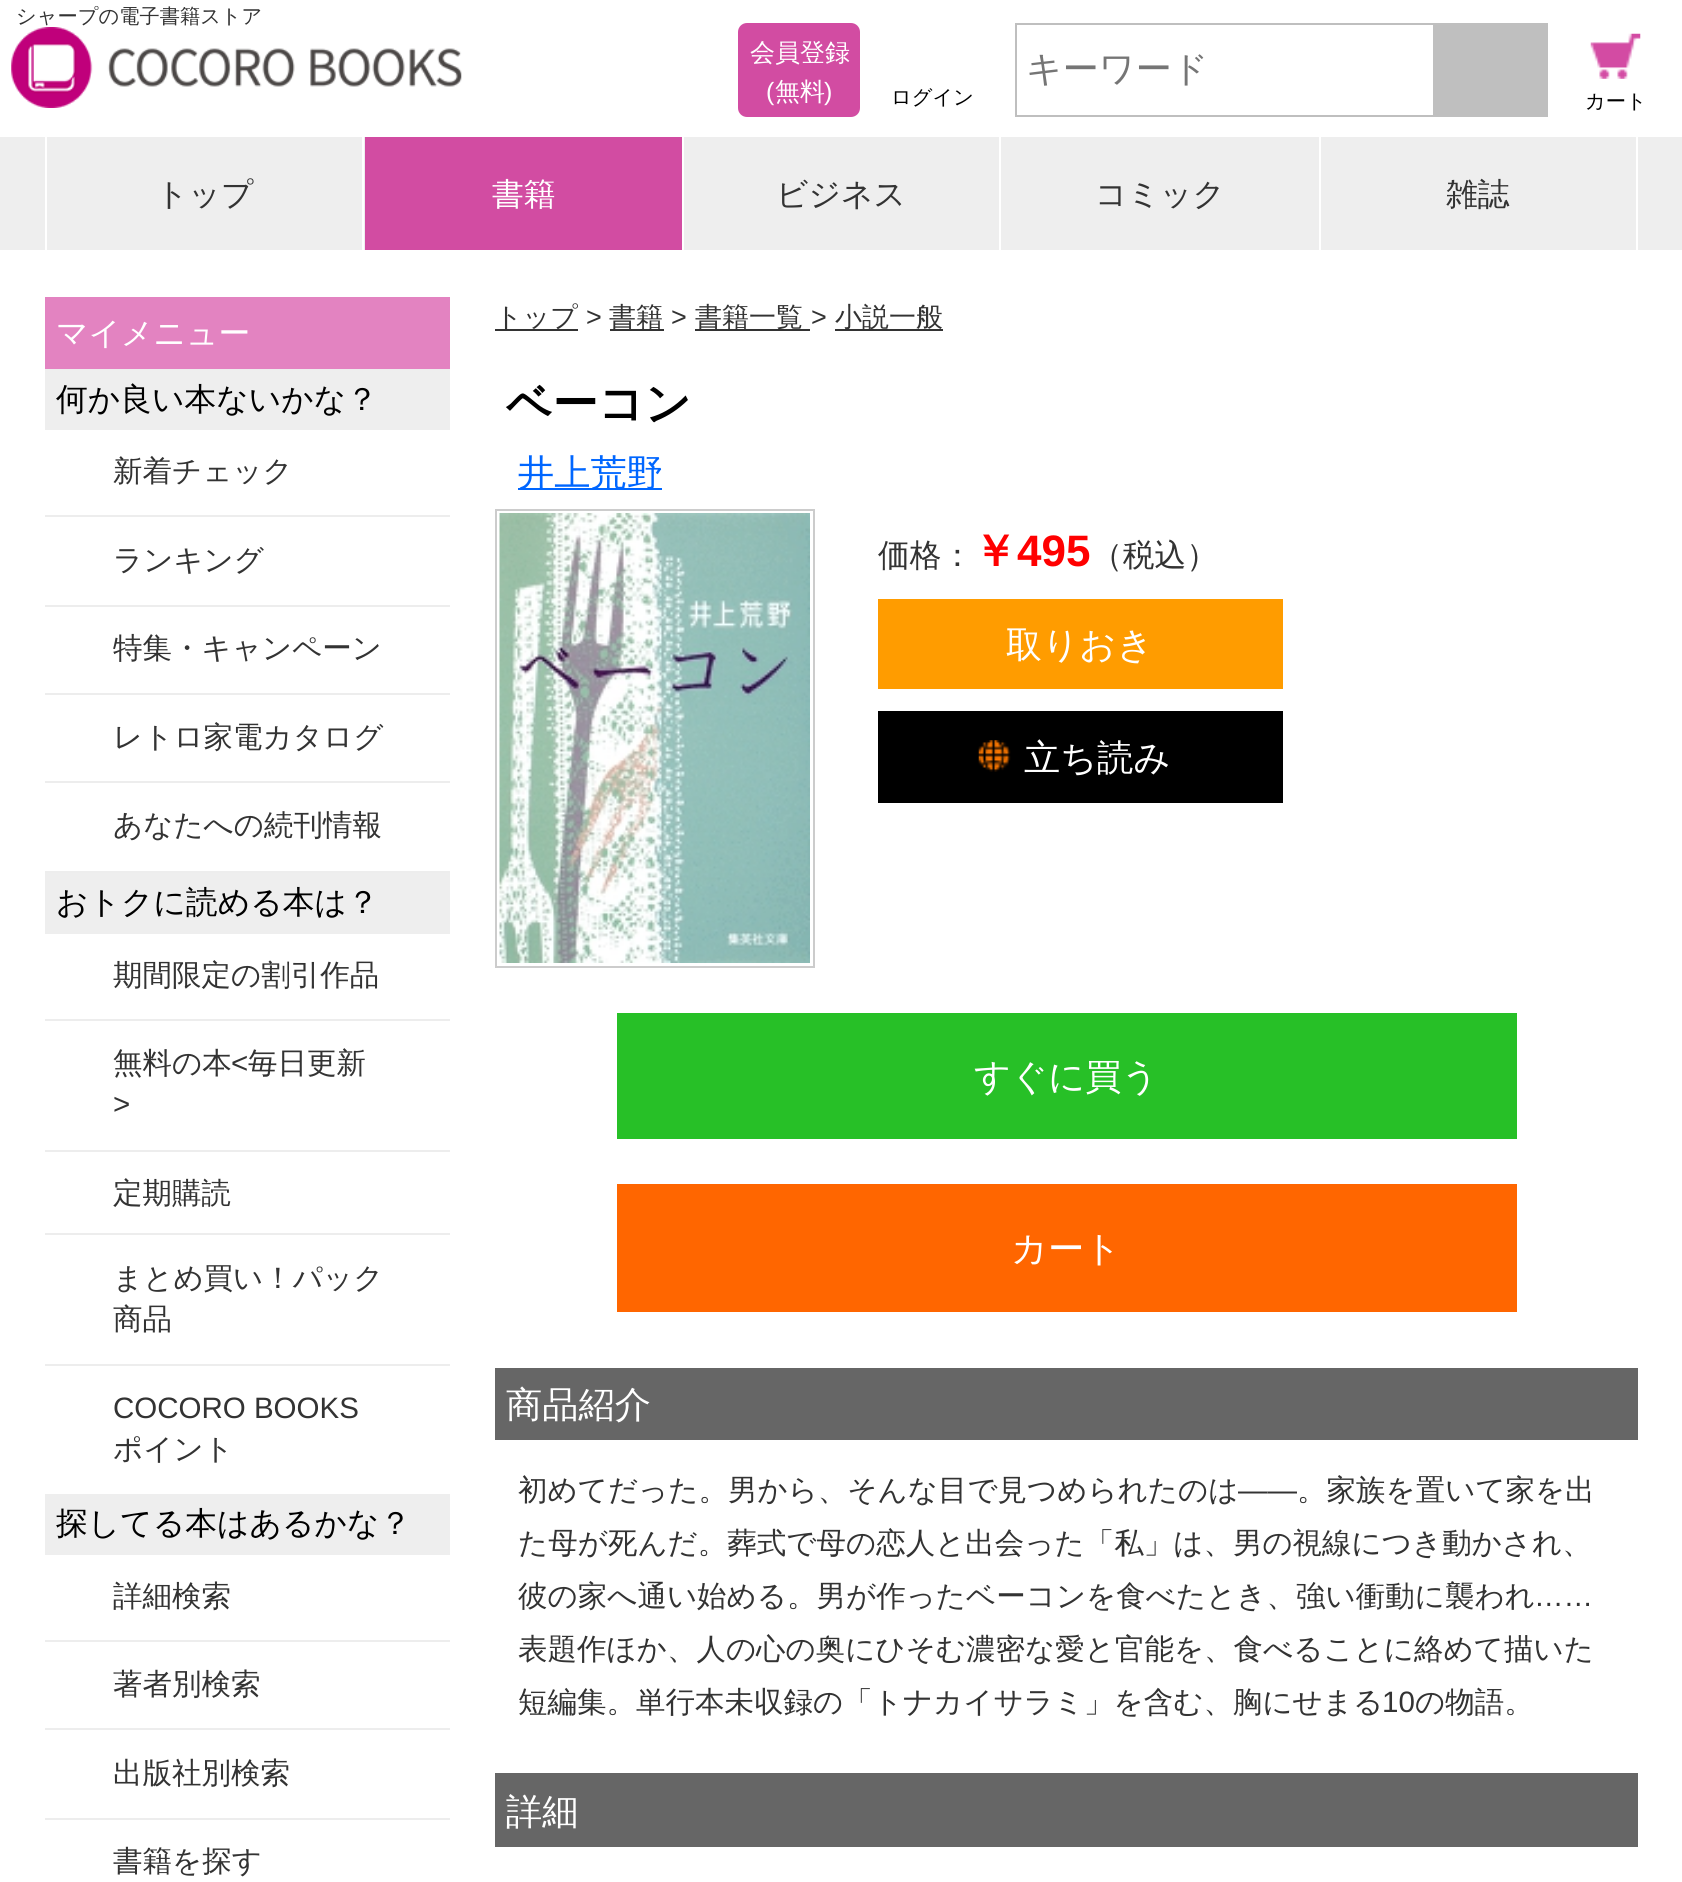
#include <cairo/cairo.h>
#include <math.h>
#include <stddef.h>

static cairo_t *cr;

static void use_color(int r, int g, int b) {
  cairo_set_source_rgb(cr, r / 255.0, g / 255.0, b / 255.0);
}

static void text(double x, double y, const char *s, const char *family, double size, int italic, int bold, int r, int g, int b) {
  cairo_select_font_face(cr, family, italic ? CAIRO_FONT_SLANT_ITALIC : CAIRO_FONT_SLANT_NORMAL,
    bold ? CAIRO_FONT_WEIGHT_BOLD : CAIRO_FONT_WEIGHT_NORMAL);
  cairo_set_font_size(cr, size);
  use_color(r, g, b);
  cairo_move_to(cr, x, y);
  cairo_show_text(cr, s);
}

static void box(double x, double y, double w, double h, int r, int g, int b) {
  use_color(r, g, b);
  cairo_rectangle(cr, x, y, w, h);
  cairo_fill(cr);
}

static void round_rect(double x, double y, double w, double h, double r) {
  cairo_new_sub_path(cr);
  cairo_arc(cr, x + w - r, y + h - r, r, 0, M_PI / 2);
  cairo_arc(cr, x + r, y + h - r, r, M_PI / 2, M_PI);
  cairo_arc(cr, x + r, y + r, r, M_PI, 1.5 * M_PI);
  cairo_arc(cr, x + w - r, y + r, r, 1.5 * M_PI, 2 * M_PI);
  cairo_close_path(cr);
}

static void picture(const char *path, double x, double y, double w, double h) {
  cairo_surface_t *image = cairo_image_surface_create_from_png(path);
  cairo_save(cr);
  cairo_set_source_surface(cr, image, x, y);
  cairo_rectangle(cr, x, y, w, h);
  cairo_fill(cr);
  cairo_restore(cr);
  cairo_surface_destroy(image);
}

static void draw(void) {
  use_color(255, 255, 255);
  cairo_paint(cr);
  picture("img_01.png", 11, 27, 451, 81);
  use_color(210, 76, 162);
  round_rect(738, 23, 122, 94, 9);
  cairo_fill(cr);
  cairo_rectangle(cr, 1016, 24, 531, 92);
  use_color(191, 191, 191);
  cairo_stroke(cr);
  box(1433, 25, 113, 90, 191, 191, 191);
  picture("img_02.png", 1590, 33, 51, 46);
  box(0, 137, 1682, 113, 238, 238, 238);
  box(45, 137, 2, 113, 255, 255, 255);
  box(362, 137, 2, 113, 255, 255, 255);
  box(365, 137, 317, 113, 210, 76, 162);
  box(682, 137, 2, 113, 255, 255, 255);
  box(999, 137, 2, 113, 255, 255, 255);
  box(1319, 137, 2, 113, 255, 255, 255);
  box(1636, 137, 2, 113, 255, 255, 255);
  box(45, 297, 405, 72, 227, 131, 193);
  box(45, 369, 405, 61, 238, 238, 238);
  box(45, 515, 405, 2, 237, 237, 237);
  box(45, 605, 405, 2, 237, 237, 237);
  box(45, 693, 405, 2, 237, 237, 237);
  box(45, 781, 405, 2, 237, 237, 237);
  box(45, 871, 405, 2, 237, 237, 237);
  box(45, 873, 405, 61, 238, 238, 238);
  box(45, 1019, 405, 2, 237, 237, 237);
  box(45, 1150, 405, 2, 237, 237, 237);
  box(45, 1233, 405, 2, 237, 237, 237);
  box(45, 1364, 405, 2, 237, 237, 237);
  box(45, 1494, 405, 61, 238, 238, 238);
  box(45, 1640, 405, 2, 237, 237, 237);
  box(45, 1728, 405, 2, 237, 237, 237);
  box(45, 1818, 405, 2, 237, 237, 237);
  box(495, 329, 83, 2, 51, 51, 51);
  box(610, 329, 54, 2, 51, 51, 51);
  box(695, 329, 115, 2, 51, 51, 51);
  box(835, 329, 108, 2, 51, 51, 51);
  box(518, 488, 144, 2, 0, 102, 255);
  cairo_rectangle(cr, 496, 510, 318, 457);
  use_color(204, 204, 204);
  cairo_stroke(cr);
  picture("img_03.png", 499, 513, 311, 450);
  box(878, 599, 405, 90, 255, 156, 0);
  box(878, 711, 405, 92, 0, 0, 0);
  picture("img_04.png", 978, 740, 33, 32);
  box(617, 1013, 900, 126, 39, 192, 39);
  box(617, 1184, 900, 128, 255, 102, 0);
  box(495, 1368, 1143, 72, 102, 102, 102);
  box(495, 1773, 1143, 74, 102, 102, 102);
  text(16, 23, "シャープの電子書籍ストア", "WenQuanYi Zen Hei Medium", 20.25, 0, 0, 51, 51, 51);
  text(750, 61, "会員登録", "WenQuanYi Zen Hei Medium", 25, 0, 0, 255, 255, 255);
  text(766, 100, "(", "Liberation Sans", 25, 0, 0, 255, 255, 255);
  text(775, 100, "無料", "WenQuanYi Zen Hei Medium", 25, 0, 0, 255, 255, 255);
  text(824, 100, ")", "Liberation Sans", 25, 0, 0, 255, 255, 255);
  text(891, 104, "ログイン", "WenQuanYi Zen Hei Medium", 20.25, 0, 0, 0, 0, 0);
  text(1026, 81, "キーワード", "WenQuanYi Zen Hei Medium", 36, 0, 0, 117, 117, 117);
  text(1585, 108, "カート", "WenQuanYi Zen Hei Medium", 20.25, 0, 0, 0, 0, 0);
  text(156, 205, "トップ", "WenQuanYi Zen Hei Medium", 31.75, 0, 0, 51, 51, 51);
  text(492, 205, "書籍", "WenQuanYi Zen Hei Medium", 31.75, 0, 0, 255, 255, 255);
  text(776, 205, "ビジネス", "WenQuanYi Zen Hei Medium", 31.75, 0, 0, 51, 51, 51);
  text(1095, 205, "コミック", "WenQuanYi Zen Hei Medium", 31.75, 0, 0, 51, 51, 51);
  text(1446, 205, "雑誌", "WenQuanYi Zen Hei Medium", 31.75, 0, 0, 51, 51, 51);
  text(56, 344, "マイメニュー", "WenQuanYi Zen Hei Medium", 31.75, 0, 0, 255, 255, 255);
  text(56, 410, "何か良い本ないかな？", "WenQuanYi Zen Hei Medium", 31.75, 0, 0, 0, 0, 0);
  text(113, 481, "新着チェック", "WenQuanYi Zen Hei Medium", 29.5, 0, 0, 51, 51, 51);
  text(113, 570, "ランキング", "WenQuanYi Zen Hei Medium", 29.5, 0, 0, 51, 51, 51);
  text(113, 658, "特集・キャンペーン", "WenQuanYi Zen Hei Medium", 29.5, 0, 0, 51, 51, 51);
  text(113, 747, "レトロ家電カタログ", "WenQuanYi Zen Hei Medium", 29.5, 0, 0, 51, 51, 51);
  text(113, 835, "あなたへの続刊情報", "WenQuanYi Zen Hei Medium", 29.5, 0, 0, 51, 51, 51);
  text(56, 913, "おトクに読める本は？", "WenQuanYi Zen Hei Medium", 31.75, 0, 0, 0, 0, 0);
  text(113, 985, "期間限定の割引作品", "WenQuanYi Zen Hei Medium", 29.5, 0, 0, 51, 51, 51);
  text(113, 1073, "無料の本", "WenQuanYi Zen Hei Medium", 29.5, 0, 0, 51, 51, 51);
  text(231, 1073, "<", "Liberation Sans", 29.5, 0, 0, 51, 51, 51);
  text(248, 1073, "毎日更新", "WenQuanYi Zen Hei Medium", 29.5, 0, 0, 51, 51, 51);
  text(113, 1114, ">", "Liberation Sans", 29.5, 0, 0, 51, 51, 51);
  text(113, 1203, "定期購読", "WenQuanYi Zen Hei Medium", 29.5, 0, 0, 51, 51, 51);
  text(113, 1288, "まとめ買い！パック", "WenQuanYi Zen Hei Medium", 29.5, 0, 0, 51, 51, 51);
  text(113, 1329, "商品", "WenQuanYi Zen Hei Medium", 29.5, 0, 0, 51, 51, 51);
  text(113, 1418, "COCORO BOOKS", "Liberation Sans", 29.5, 0, 0, 51, 51, 51);
  text(113, 1459, "ポイント", "WenQuanYi Zen Hei Medium", 29.5, 0, 0, 51, 51, 51);
  text(56, 1534, "探してる本はあるかな？", "WenQuanYi Zen Hei Medium", 31.75, 0, 0, 0, 0, 0);
  text(113, 1606, "詳細検索", "WenQuanYi Zen Hei Medium", 29.5, 0, 0, 51, 51, 51);
  text(113, 1694, "著者別検索", "WenQuanYi Zen Hei Medium", 29.5, 0, 0, 51, 51, 51);
  text(113, 1783, "出版社別検索", "WenQuanYi Zen Hei Medium", 29.5, 0, 0, 51, 51, 51);
  text(113, 1871, "書籍を探す", "WenQuanYi Zen Hei Medium", 29.5, 0, 0, 51, 51, 51);
  text(495, 326, "トップ", "WenQuanYi Zen Hei Medium", 27, 0, 0, 51, 51, 51);
  text(586, 326, ">", "Liberation Sans", 27, 0, 0, 51, 51, 51);
  text(609, 326, "書籍", "WenQuanYi Zen Hei Medium", 27, 0, 0, 51, 51, 51);
  text(671, 326, ">", "Liberation Sans", 27, 0, 0, 51, 51, 51);
  text(695, 326, "書籍一覧", "WenQuanYi Zen Hei Medium", 27, 0, 0, 51, 51, 51);
  text(811, 326, ">", "Liberation Sans", 27, 0, 0, 51, 51, 51);
  text(835, 326, "小説一般", "WenQuanYi Zen Hei Medium", 27, 0, 0, 51, 51, 51);
  text(506, 419, "ベーコン", "WenQuanYi Zen Hei", 45.5, 0, 1, 0, 0, 0);
  text(518, 485, "井上荒野", "WenQuanYi Zen Hei Medium", 36.25, 0, 0, 0, 102, 255);
  text(878, 566, "価格：", "WenQuanYi Zen Hei Medium", 31.75, 0, 0, 51, 51, 51);
  text(973, 566, "￥", "WenQuanYi Zen Hei", 44, 0, 1, 255, 0, 0);
  text(1017, 566, "495", "Liberation Sans", 44, 0, 1, 255, 0, 0);
  text(1091, 566, "（税込）", "WenQuanYi Zen Hei Medium", 31.75, 0, 0, 51, 51, 51);
  text(1006, 657, "取りおき", "WenQuanYi Zen Hei Medium", 36.25, 0, 0, 255, 255, 255);
  text(1024, 770, "立ち読み", "WenQuanYi Zen Hei Medium", 36.25, 0, 0, 255, 255, 255);
  text(974, 1089, "すぐに買う", "WenQuanYi Zen Hei Medium", 36.25, 0, 0, 255, 255, 255);
  text(1011, 1261, "カート", "WenQuanYi Zen Hei Medium", 36.25, 0, 0, 255, 255, 255);
  text(506, 1417, "商品紹介", "WenQuanYi Zen Hei Medium", 36.25, 0, 0, 255, 255, 255);
  text(518, 1500, "初めてだった。男から、そんな目で見つめられたのは", "WenQuanYi Zen Hei Medium", 29.5, 0, 0, 51, 51, 51);
  text(1238, 1500, "――", "Liberation Sans", 29.5, 0, 0, 51, 51, 51);
  text(1297, 1500, "。家族を置いて家を出", "WenQuanYi Zen Hei Medium", 29.5, 0, 0, 51, 51, 51);
  text(518, 1553, "た母が死んだ。葬式で母の恋人と出会った「私」は、男の視線につき動かされ、", "WenQuanYi Zen Hei Medium", 29.5, 0, 0, 51, 51, 51);
  text(518, 1606, "彼の家へ通い始める。男が作ったベーコンを食べたとき、強い衝動に襲われ", "WenQuanYi Zen Hei Medium", 29.5, 0, 0, 51, 51, 51);
  text(1534, 1606, "……", "Liberation Sans", 29.5, 0, 0, 51, 51, 51);
  text(518, 1659, "表題作ほか、人の心の奥にひそむ濃密な愛と官能を、食べることに絡めて描いた", "WenQuanYi Zen Hei Medium", 29.5, 0, 0, 51, 51, 51);
  text(518, 1712, "短編集。単行本未収録の「トナカイサラミ」を含む、胸にせまる", "WenQuanYi Zen Hei Medium", 29.5, 0, 0, 51, 51, 51);
  text(1382, 1712, "10", "Liberation Sans", 29.5, 0, 0, 51, 51, 51);
  text(1415, 1712, "の物語。", "WenQuanYi Zen Hei Medium", 29.5, 0, 0, 51, 51, 51);
  text(506, 1824, "詳細", "WenQuanYi Zen Hei Medium", 36.25, 0, 0, 255, 255, 255);
}

int main(void) {
  cairo_surface_t *surface = cairo_image_surface_create(CAIRO_FORMAT_RGB24, 1682, 1882);
  cr = cairo_create(surface);
  cairo_font_options_t *options = cairo_font_options_create();
  cairo_font_options_set_hint_metrics(options, CAIRO_HINT_METRICS_OFF);
  cairo_font_options_set_hint_style(options, CAIRO_HINT_STYLE_NONE);
  cairo_set_font_options(cr, options);
  cairo_set_miter_limit(cr, 4);
  draw();
  cairo_surface_write_to_png(surface, "out.png");
  cairo_font_options_destroy(options);
  cairo_destroy(cr);
  cairo_surface_destroy(surface);
  return 0;
}
